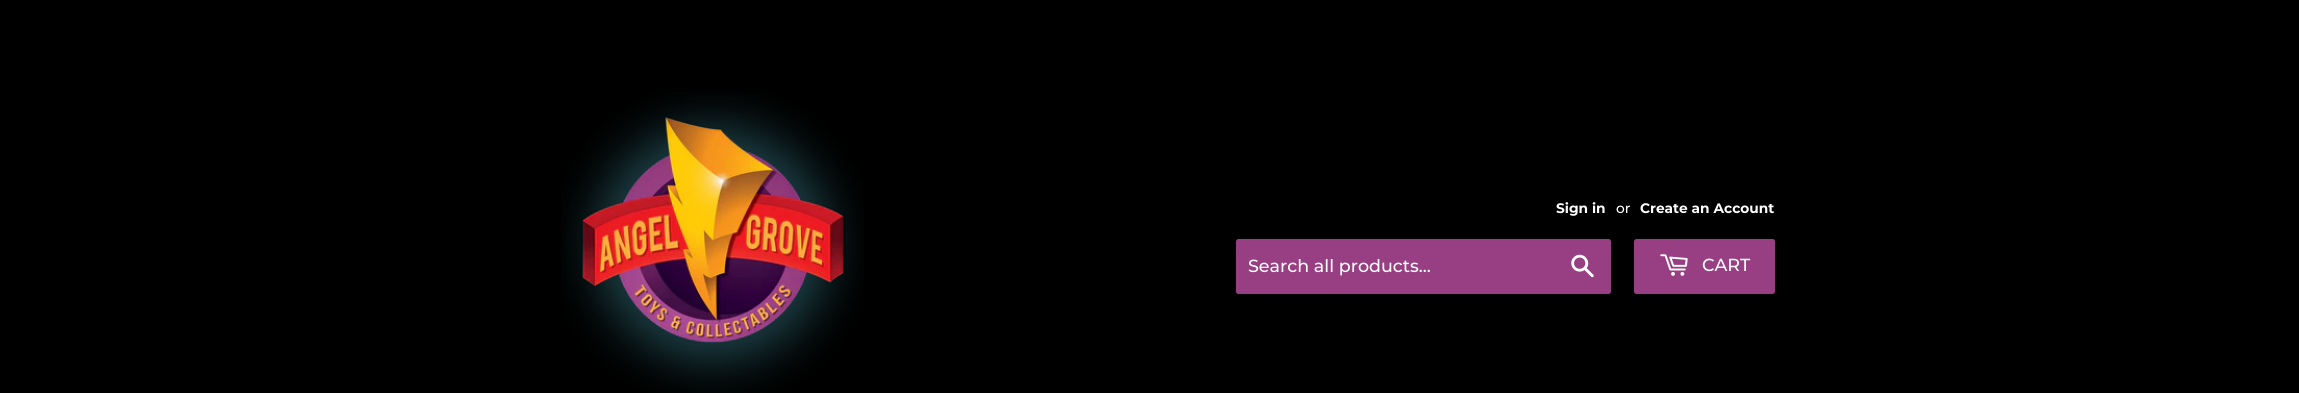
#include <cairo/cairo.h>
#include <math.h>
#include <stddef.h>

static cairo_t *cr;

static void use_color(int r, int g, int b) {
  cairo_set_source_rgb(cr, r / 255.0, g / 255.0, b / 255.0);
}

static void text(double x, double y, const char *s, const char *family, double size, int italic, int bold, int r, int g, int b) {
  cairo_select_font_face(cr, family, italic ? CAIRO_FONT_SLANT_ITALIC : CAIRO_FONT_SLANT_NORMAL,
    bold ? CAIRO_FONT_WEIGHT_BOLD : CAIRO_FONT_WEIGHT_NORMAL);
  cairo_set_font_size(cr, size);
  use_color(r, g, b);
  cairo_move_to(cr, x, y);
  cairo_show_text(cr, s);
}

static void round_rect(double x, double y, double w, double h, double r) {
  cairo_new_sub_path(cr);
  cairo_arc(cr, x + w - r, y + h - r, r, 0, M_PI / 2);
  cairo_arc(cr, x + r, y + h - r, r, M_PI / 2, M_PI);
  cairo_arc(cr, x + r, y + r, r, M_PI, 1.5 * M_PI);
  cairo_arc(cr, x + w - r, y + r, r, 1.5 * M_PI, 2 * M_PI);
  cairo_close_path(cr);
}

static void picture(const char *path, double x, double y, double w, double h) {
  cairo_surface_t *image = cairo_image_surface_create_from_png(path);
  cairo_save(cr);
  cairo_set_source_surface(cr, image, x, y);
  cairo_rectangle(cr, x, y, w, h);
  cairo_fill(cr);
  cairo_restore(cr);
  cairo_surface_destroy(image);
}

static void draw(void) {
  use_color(0, 0, 0);
  cairo_paint(cr);
  picture("img_01.png", 561, 92, 303, 301);
  use_color(152, 63, 131);
  round_rect(1236, 239, 375, 55, 2.5);
  cairo_fill(cr);
  picture("img_02.png", 1571, 254, 23, 24);
  round_rect(1634, 239, 141, 55, 2.5);
  cairo_fill(cr);
  picture("img_03.png", 1660, 254, 28, 22);
  text(1556, 213, "Sign in", "Montserrat", 13.75, 0, 1, 255, 255, 255);
  text(1616, 213, "or", "Montserrat Medium", 13.75, 0, 0, 255, 255, 255);
  text(1640, 213, "Create an Account", "Montserrat", 13.75, 0, 1, 255, 255, 255);
  text(1248, 272, "Search all products...", "Montserrat Medium", 17.5, 0, 0, 255, 255, 255);
  text(1702, 271, "CART", "Montserrat Medium", 17.5, 0, 0, 255, 255, 255);
}

int main(void) {
  cairo_surface_t *surface = cairo_image_surface_create(CAIRO_FORMAT_RGB24, 2299, 393);
  cr = cairo_create(surface);
  cairo_font_options_t *options = cairo_font_options_create();
  cairo_font_options_set_hint_metrics(options, CAIRO_HINT_METRICS_OFF);
  cairo_font_options_set_hint_style(options, CAIRO_HINT_STYLE_NONE);
  cairo_set_font_options(cr, options);
  cairo_set_miter_limit(cr, 4);
  draw();
  cairo_surface_write_to_png(surface, "out.png");
  cairo_font_options_destroy(options);
  cairo_destroy(cr);
  cairo_surface_destroy(surface);
  return 0;
}
